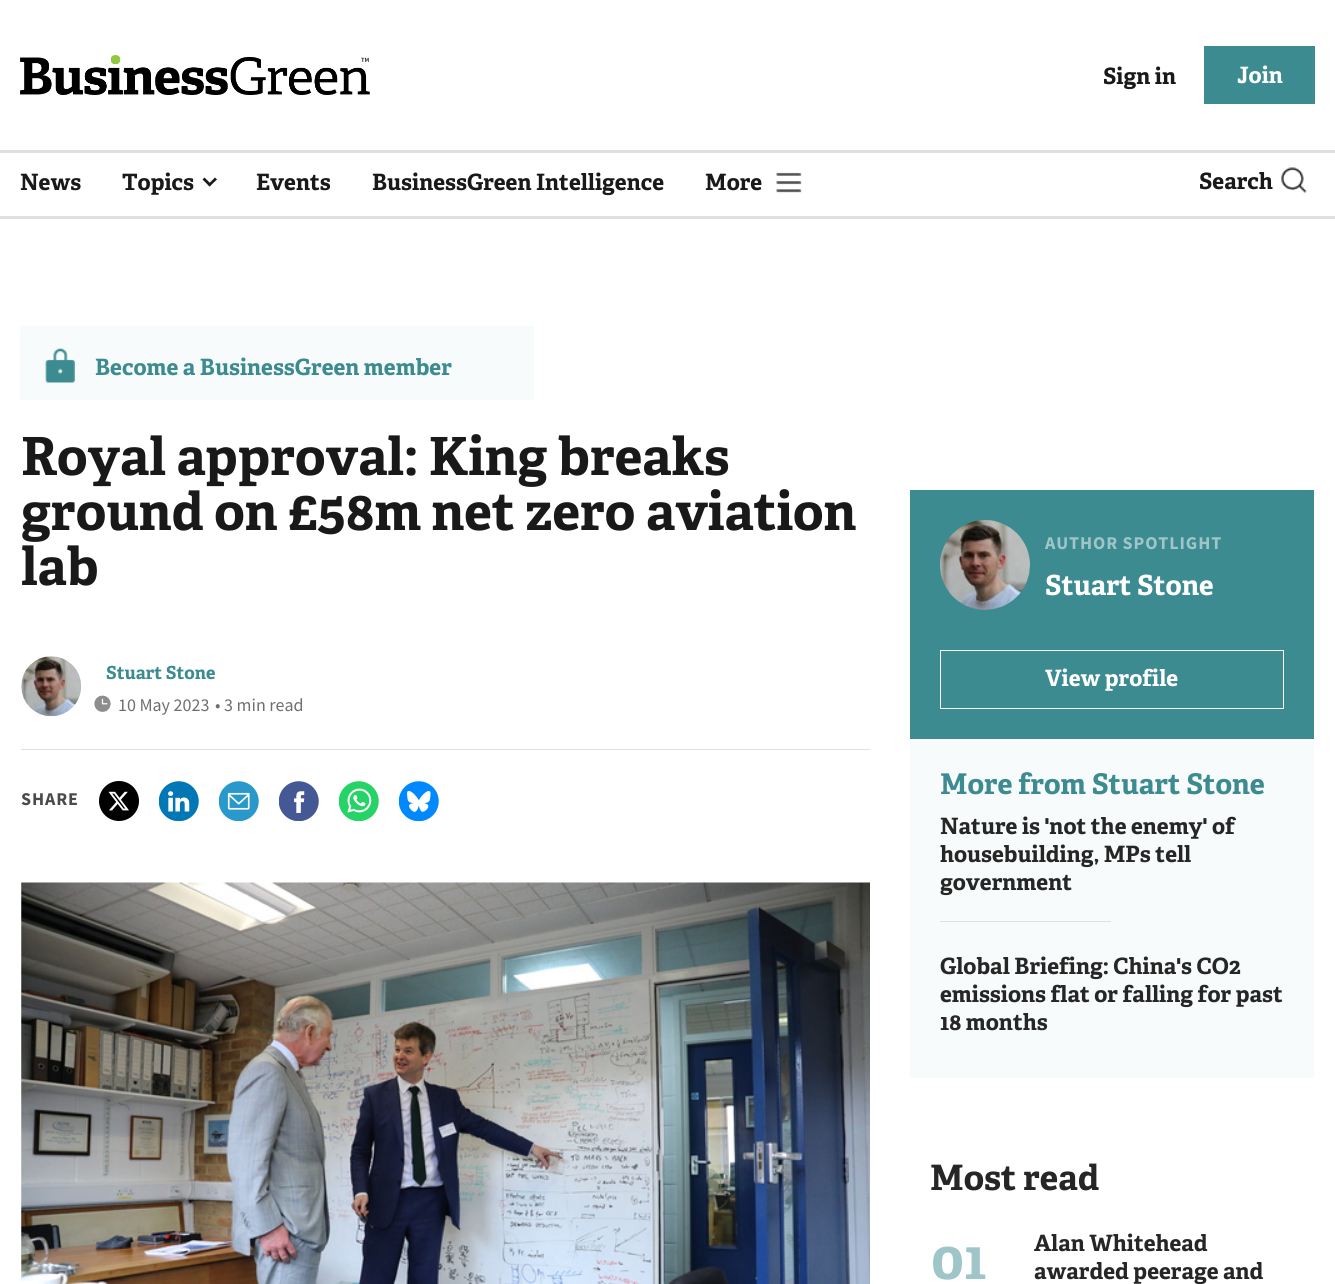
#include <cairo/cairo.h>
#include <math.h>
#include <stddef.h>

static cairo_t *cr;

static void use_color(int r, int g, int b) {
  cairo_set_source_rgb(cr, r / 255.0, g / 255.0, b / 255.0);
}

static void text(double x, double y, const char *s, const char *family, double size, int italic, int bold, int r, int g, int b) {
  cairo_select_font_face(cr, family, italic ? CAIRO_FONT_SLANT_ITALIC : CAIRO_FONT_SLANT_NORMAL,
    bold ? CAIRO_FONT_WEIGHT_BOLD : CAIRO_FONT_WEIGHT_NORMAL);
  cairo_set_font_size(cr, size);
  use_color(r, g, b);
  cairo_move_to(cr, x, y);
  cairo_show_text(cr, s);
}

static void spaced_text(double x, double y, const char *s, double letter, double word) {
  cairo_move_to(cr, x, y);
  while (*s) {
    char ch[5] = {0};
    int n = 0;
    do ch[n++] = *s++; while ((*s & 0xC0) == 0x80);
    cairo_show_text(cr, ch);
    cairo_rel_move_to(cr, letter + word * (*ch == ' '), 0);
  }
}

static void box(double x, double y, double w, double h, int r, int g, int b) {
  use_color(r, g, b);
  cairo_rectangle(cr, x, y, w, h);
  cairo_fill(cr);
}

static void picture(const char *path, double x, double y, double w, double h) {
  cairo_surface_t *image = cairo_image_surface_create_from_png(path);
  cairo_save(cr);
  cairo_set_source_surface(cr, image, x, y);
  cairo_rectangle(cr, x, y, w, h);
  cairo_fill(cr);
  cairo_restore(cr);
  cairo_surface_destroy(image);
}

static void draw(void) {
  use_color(255, 255, 255);
  cairo_paint(cr);
  picture("img_01.png", 20, 55, 350, 40);
  box(1204, 46, 111, 58, 60, 139, 144);
  box(0, 150, 1335, 3, 224, 224, 224);
  box(0, 216, 1335, 3, 224, 224, 224);
  use_color(26, 25, 25);
  cairo_new_path(cr);
  cairo_move_to(cr, 215, 177.5);
  cairo_line_to(cr, 217, 179.5);
  cairo_line_to(cr, 209.5, 186.5);
  cairo_line_to(cr, 208, 184.5);
  cairo_close_path(cr);
  cairo_fill(cr);
  cairo_new_path(cr);
  cairo_move_to(cr, 204.5, 177.5);
  cairo_line_to(cr, 211.5, 184.5);
  cairo_line_to(cr, 209.5, 186.5);
  cairo_line_to(cr, 202.5, 179.5);
  cairo_close_path(cr);
  cairo_fill(cr);
  picture("img_02.png", 776, 172, 26, 21);
  picture("img_03.png", 1281, 167, 26, 26);
  box(20, 326, 514, 74, 248, 251, 251);
  picture("img_04.png", 45, 348, 30, 35);
  picture("img_05.png", 21, 656, 61, 61);
  picture("img_06.png", 94, 695, 17, 17);
  box(21, 749, 849, 1, 224, 224, 224);
  picture("img_07.png", 99, 781, 40, 40);
  picture("img_08.png", 159, 781, 40, 40);
  picture("img_09.png", 219, 781, 40, 40);
  picture("img_10.png", 279, 781, 40, 40);
  picture("img_11.png", 339, 781, 40, 40);
  picture("img_12.png", 399, 781, 40, 40);
  picture("img_13.png", 21, 882, 849, 402);
  box(910, 490, 404, 249, 60, 139, 144);
  picture("img_14.png", 940, 520, 90, 90);
  cairo_rectangle(cr, 940.5, 650.5, 343, 58);
  use_color(255, 255, 255);
  cairo_set_line_width(cr, 1);
  cairo_stroke(cr);
  box(910, 739, 404, 339, 248, 251, 251);
  box(940, 921, 171, 1, 224, 224, 224);
  text(1103, 84, "Sign in", "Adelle", 22.5, 0, 1, 26, 25, 25);
  text(1237, 83, "Join", "Adelle", 22.5, 0, 1, 255, 255, 255);
  text(20, 190, "News", "Adelle", 22.5, 0, 1, 26, 25, 25);
  text(122, 190, "Topics", "Adelle", 22.5, 0, 1, 26, 25, 25);
  text(256, 190, "Events", "Adelle", 22.5, 0, 1, 26, 25, 25);
  text(372, 190, "BusinessGreen Intelligence", "Adelle", 22.5, 0, 1, 26, 25, 25);
  text(705, 190, "More", "Adelle", 22.5, 0, 1, 26, 25, 25);
  text(1199, 189, "Search", "Adelle", 22.5, 0, 1, 26, 25, 25);
  text(95, 375, "Become a BusinessGreen member", "Adelle", 22.5, 0, 1, 60, 139, 144);
  text(21, 475, "Royal approval: King breaks", "Adelle", 52.5, 0, 1, 26, 25, 25);
  text(21, 530, "ground on £58m net zero aviation", "Adelle", 52.5, 0, 1, 26, 25, 25);
  text(21, 585, "lab", "Adelle", 52.5, 0, 1, 26, 25, 25);
  text(106, 679, "Stuart Stone", "Adelle", 18, 0, 1, 60, 139, 144);
  text(118, 711, "10 May 2023", "Source Sans Pro", 18, 0, 0, 111, 111, 111);
  text(215, 711, "• 3 min read", "Source Sans Pro", 18, 0, 0, 111, 111, 111);
  cairo_select_font_face(cr, "Source Sans Pro", CAIRO_FONT_SLANT_NORMAL, CAIRO_FONT_WEIGHT_BOLD);
  use_color(74, 74, 73);
  spaced_text(21, 805, "SHARE", 0.9, 0);
  use_color(158, 197, 200);
  spaced_text(1045, 549, "AUTHOR SPOTLIGHT", 0.9, 0);
  text(1045, 595, "Stuart Stone", "Adelle", 27.75, 0, 1, 255, 255, 255);
  text(1045, 686, "View profile", "Adelle", 22.5, 0, 1, 255, 255, 255);
  text(940, 794, "More from Stuart Stone", "Adelle", 28.5, 0, 1, 60, 139, 144);
  text(940, 834, "Nature is 'not the enemy' of", "Adelle", 22.5, 0, 1, 38, 38, 38);
  text(940, 862, "housebuilding, MPs tell", "Adelle", 22.5, 0, 1, 38, 38, 38);
  text(940, 890, "government", "Adelle", 22.5, 0, 1, 38, 38, 38);
  text(940, 974, "Global Briefing: China's CO2", "Adelle", 22.5, 0, 1, 38, 38, 38);
  text(940, 1002, "emissions flat or falling for past", "Adelle", 22.5, 0, 1, 38, 38, 38);
  text(940, 1030, "18 months", "Adelle", 22.5, 0, 1, 38, 38, 38);
  text(930, 1190, "Most read", "Adelle", 35, 0, 1, 38, 38, 38);
  text(931, 1279, "01", "Adelle", 55, 0, 1, 158, 197, 200);
  text(1034, 1251, "Alan Whitehead", "Adelle", 22.5, 0, 1, 38, 38, 38);
  text(1034, 1279, "awarded peerage and", "Adelle", 22.5, 0, 1, 38, 38, 38);
}

int main(void) {
  cairo_surface_t *surface = cairo_image_surface_create(CAIRO_FORMAT_RGB24, 1335, 1284);
  cr = cairo_create(surface);
  cairo_font_options_t *options = cairo_font_options_create();
  cairo_font_options_set_hint_metrics(options, CAIRO_HINT_METRICS_OFF);
  cairo_font_options_set_hint_style(options, CAIRO_HINT_STYLE_NONE);
  cairo_set_font_options(cr, options);
  cairo_set_miter_limit(cr, 4);
  draw();
  cairo_surface_write_to_png(surface, "out.png");
  cairo_font_options_destroy(options);
  cairo_destroy(cr);
  cairo_surface_destroy(surface);
  return 0;
}
